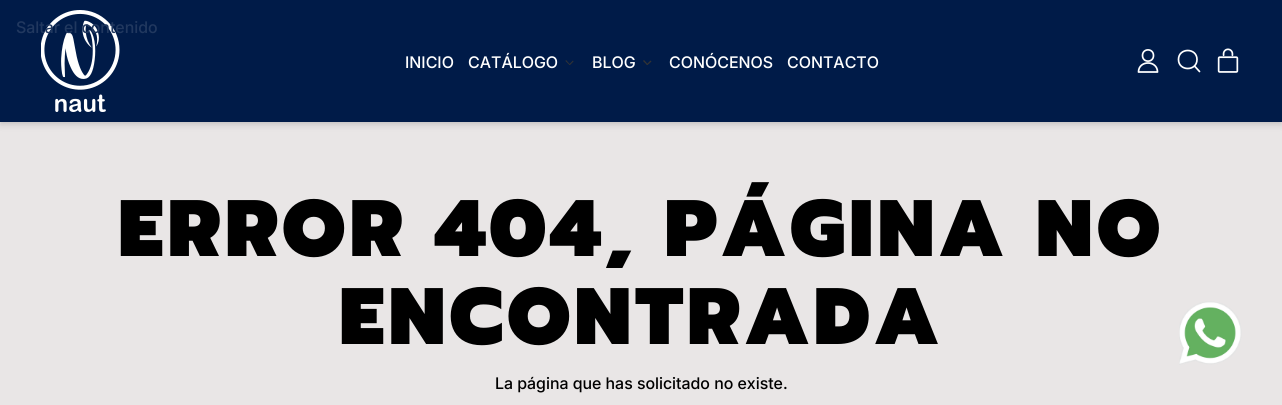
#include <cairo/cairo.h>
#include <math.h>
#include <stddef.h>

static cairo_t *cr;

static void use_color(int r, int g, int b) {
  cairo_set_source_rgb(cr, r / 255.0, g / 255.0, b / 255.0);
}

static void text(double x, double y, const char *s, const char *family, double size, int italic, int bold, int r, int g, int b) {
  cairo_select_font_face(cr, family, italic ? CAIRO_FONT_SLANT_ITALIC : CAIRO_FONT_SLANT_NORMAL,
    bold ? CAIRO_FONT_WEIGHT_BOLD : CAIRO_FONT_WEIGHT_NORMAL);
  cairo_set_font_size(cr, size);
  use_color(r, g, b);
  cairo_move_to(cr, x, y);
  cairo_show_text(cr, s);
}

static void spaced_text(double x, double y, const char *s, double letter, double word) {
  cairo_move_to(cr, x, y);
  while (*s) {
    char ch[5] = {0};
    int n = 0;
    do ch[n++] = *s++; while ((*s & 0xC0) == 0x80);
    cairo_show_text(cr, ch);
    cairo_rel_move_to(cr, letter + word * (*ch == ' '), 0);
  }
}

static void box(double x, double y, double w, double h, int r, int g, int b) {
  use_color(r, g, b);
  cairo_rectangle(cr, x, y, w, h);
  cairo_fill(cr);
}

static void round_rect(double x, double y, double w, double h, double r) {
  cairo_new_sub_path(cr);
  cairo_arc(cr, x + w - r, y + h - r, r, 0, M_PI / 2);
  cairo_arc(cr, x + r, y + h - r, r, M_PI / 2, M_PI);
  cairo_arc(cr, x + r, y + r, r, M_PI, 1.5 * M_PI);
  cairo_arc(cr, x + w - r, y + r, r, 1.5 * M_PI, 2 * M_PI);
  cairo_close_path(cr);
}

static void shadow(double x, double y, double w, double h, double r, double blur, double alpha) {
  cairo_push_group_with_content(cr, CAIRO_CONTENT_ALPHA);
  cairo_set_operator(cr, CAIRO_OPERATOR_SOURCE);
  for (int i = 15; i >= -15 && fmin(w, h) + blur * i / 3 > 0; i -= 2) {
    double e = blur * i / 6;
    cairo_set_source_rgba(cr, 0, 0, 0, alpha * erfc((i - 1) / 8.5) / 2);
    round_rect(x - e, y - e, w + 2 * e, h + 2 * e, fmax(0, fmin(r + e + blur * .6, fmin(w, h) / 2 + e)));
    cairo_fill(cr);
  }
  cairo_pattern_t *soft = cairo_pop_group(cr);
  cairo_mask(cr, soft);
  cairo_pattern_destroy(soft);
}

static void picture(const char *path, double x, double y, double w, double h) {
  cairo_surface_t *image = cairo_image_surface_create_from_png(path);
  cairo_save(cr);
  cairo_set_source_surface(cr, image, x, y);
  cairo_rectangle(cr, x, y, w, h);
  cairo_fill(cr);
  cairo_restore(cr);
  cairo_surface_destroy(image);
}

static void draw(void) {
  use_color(233, 230, 230);
  cairo_paint(cr);
  use_color(0, 0, 0);
  shadow(0, 1, 1282, 122, 0, 1.5, 0.06);
  shadow(0, 4, 1282, 122, 0, 3, 0.1);
  box(0, 0, 1282, 122, 0, 27, 72);
  picture("img_01.png", 41, 10, 79, 102);
  use_color(51, 51, 51);
  cairo_new_path(cr);
  cairo_move_to(cr, 573, 60.5);
  cairo_line_to(cr, 573.5, 61.5);
  cairo_line_to(cr, 570, 65);
  cairo_line_to(cr, 569, 64.5);
  cairo_close_path(cr);
  cairo_fill(cr);
  cairo_new_path(cr);
  cairo_move_to(cr, 566, 60);
  cairo_line_to(cr, 570, 64.5);
  cairo_line_to(cr, 569.5, 65);
  cairo_line_to(cr, 565.5, 61);
  cairo_close_path(cr);
  cairo_fill(cr);
  cairo_new_path(cr);
  cairo_move_to(cr, 650.5, 60.5);
  cairo_line_to(cr, 651.5, 61.5);
  cairo_line_to(cr, 647.5, 65);
  cairo_line_to(cr, 646.5, 64.5);
  cairo_close_path(cr);
  cairo_fill(cr);
  cairo_new_path(cr);
  cairo_move_to(cr, 644, 60);
  cairo_line_to(cr, 648, 64.5);
  cairo_line_to(cr, 647, 65);
  cairo_line_to(cr, 643, 61);
  cairo_close_path(cr);
  cairo_fill(cr);
  cairo_new_path(cr);
  cairo_move_to(cr, 1142.5, 55.5);
  cairo_curve_to(cr, 1142.5, 63, 1153.5, 63, 1153.5, 55.5);
  cairo_curve_to(cr, 1153.5, 48, 1142.5, 48, 1142.5, 55.5);
  cairo_close_path(cr);
  cairo_move_to(cr, 1138.5, 72);
  cairo_curve_to(cr, 1138.5, 60, 1157.5, 60, 1157.5, 72);
  cairo_close_path(cr);
  use_color(255, 255, 255);
  cairo_set_line_width(cr, 1.7);
  cairo_set_line_cap(cr, CAIRO_LINE_CAP_ROUND);
  cairo_set_line_join(cr, CAIRO_LINE_JOIN_ROUND);
  cairo_stroke(cr);
  cairo_new_path(cr);
  cairo_move_to(cr, 1178.5, 59.5);
  cairo_curve_to(cr, 1178.5, 71.5, 1197, 71.5, 1197, 59.5);
  cairo_curve_to(cr, 1197, 47.5, 1178.5, 47.5, 1178.5, 59.5);
  cairo_close_path(cr);
  cairo_move_to(cr, 1199.5, 71.5);
  cairo_line_to(cr, 1194.5, 66);
  cairo_stroke(cr);
  picture("img_02.png", 1217, 48, 22, 25);
  picture("img_03.png", 1179, 301, 63, 64);
  text(16, 33, "Saltar el contenido", "Inter Medium", 16, 0, 0, 33, 56, 95);
  text(405, 68, "INICIO", "Inter Medium", 16, 0, 0, 255, 255, 255);
  text(468, 68, "CATÁLOGO", "Inter Medium", 16, 0, 0, 255, 255, 255);
  text(592, 68, "BLOG", "Inter Medium", 16, 0, 0, 255, 255, 255);
  text(669, 68, "CONÓCENOS", "Inter Medium", 16, 0, 0, 255, 255, 255);
  text(787, 68, "CONTACTO", "Inter Medium", 16, 0, 0, 255, 255, 255);
  cairo_select_font_face(cr, "Prompt Black", CAIRO_FONT_SLANT_NORMAL, CAIRO_FONT_WEIGHT_NORMAL);
  cairo_set_font_size(cr, 80);
  use_color(0, 0, 0);
  spaced_text(118, 256, "ERROR 404, PÁGINA NO", 4, 0);
  spaced_text(339, 344, "ENCONTRADA", 4, 0);
  text(495, 389, "La página que has solicitado no existe.", "Inter Medium", 16, 0, 0, 0, 0, 0);
}

int main(void) {
  cairo_surface_t *surface = cairo_image_surface_create(CAIRO_FORMAT_RGB24, 1282, 405);
  cr = cairo_create(surface);
  cairo_font_options_t *options = cairo_font_options_create();
  cairo_font_options_set_hint_metrics(options, CAIRO_HINT_METRICS_OFF);
  cairo_font_options_set_hint_style(options, CAIRO_HINT_STYLE_NONE);
  cairo_set_font_options(cr, options);
  cairo_set_miter_limit(cr, 4);
  draw();
  cairo_surface_write_to_png(surface, "out.png");
  cairo_font_options_destroy(options);
  cairo_destroy(cr);
  cairo_surface_destroy(surface);
  return 0;
}
